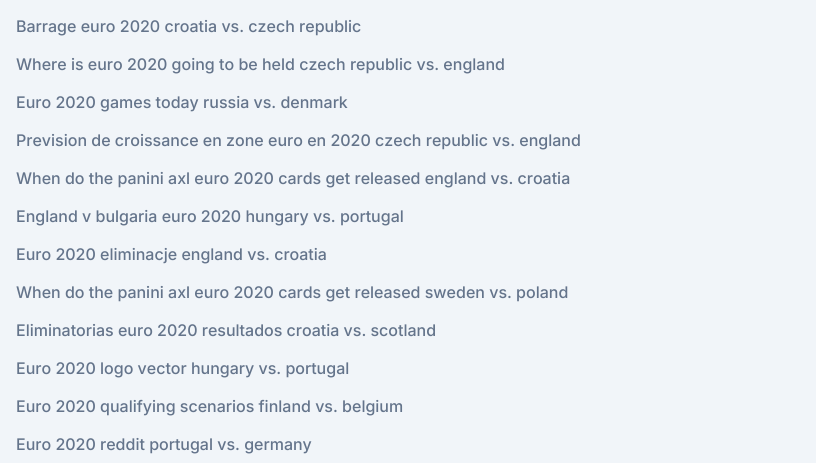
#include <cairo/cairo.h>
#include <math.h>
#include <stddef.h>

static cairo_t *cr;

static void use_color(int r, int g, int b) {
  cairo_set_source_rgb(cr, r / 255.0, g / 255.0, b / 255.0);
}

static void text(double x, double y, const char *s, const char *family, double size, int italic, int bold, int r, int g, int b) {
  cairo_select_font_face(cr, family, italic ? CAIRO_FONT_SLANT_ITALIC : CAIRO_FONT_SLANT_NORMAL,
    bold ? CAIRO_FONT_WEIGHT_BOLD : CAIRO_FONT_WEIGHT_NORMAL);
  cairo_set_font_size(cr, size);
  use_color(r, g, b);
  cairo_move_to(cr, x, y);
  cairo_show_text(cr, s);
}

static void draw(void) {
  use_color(241, 245, 249);
  cairo_paint(cr);
  text(16, 32, "Barrage euro 2020 croatia vs. czech republic", "Inter Medium", 16, 0, 0, 100, 116, 139);
  text(16, 70, "Where is euro 2020 going to be held czech republic vs. england", "Inter Medium", 16, 0, 0, 100, 116, 139);
  text(16, 108, "Euro 2020 games today russia vs. denmark", "Inter Medium", 16, 0, 0, 100, 116, 139);
  text(16, 146, "Prevision de croissance en zone euro en 2020 czech republic vs. england", "Inter Medium", 16, 0, 0, 100, 116, 139);
  text(16, 184, "When do the panini axl euro 2020 cards get released england vs. croatia", "Inter Medium", 16, 0, 0, 100, 116, 139);
  text(16, 222, "England v bulgaria euro 2020 hungary vs. portugal", "Inter Medium", 16, 0, 0, 100, 116, 139);
  text(16, 260, "Euro 2020 eliminacje england vs. croatia", "Inter Medium", 16, 0, 0, 100, 116, 139);
  text(16, 298, "When do the panini axl euro 2020 cards get released sweden vs. poland", "Inter Medium", 16, 0, 0, 100, 116, 139);
  text(16, 336, "Eliminatorias euro 2020 resultados croatia vs. scotland", "Inter Medium", 16, 0, 0, 100, 116, 139);
  text(16, 374, "Euro 2020 logo vector hungary vs. portugal", "Inter Medium", 16, 0, 0, 100, 116, 139);
  text(16, 412, "Euro 2020 qualifying scenarios finland vs. belgium", "Inter Medium", 16, 0, 0, 100, 116, 139);
  text(16, 450, "Euro 2020 reddit portugal vs. germany", "Inter Medium", 16, 0, 0, 100, 116, 139);
}

int main(void) {
  cairo_surface_t *surface = cairo_image_surface_create(CAIRO_FORMAT_RGB24, 816, 463);
  cr = cairo_create(surface);
  cairo_font_options_t *options = cairo_font_options_create();
  cairo_font_options_set_hint_metrics(options, CAIRO_HINT_METRICS_OFF);
  cairo_font_options_set_hint_style(options, CAIRO_HINT_STYLE_NONE);
  cairo_set_font_options(cr, options);
  cairo_set_miter_limit(cr, 4);
  draw();
  cairo_surface_write_to_png(surface, "out.png");
  cairo_font_options_destroy(options);
  cairo_destroy(cr);
  cairo_surface_destroy(surface);
  return 0;
}
